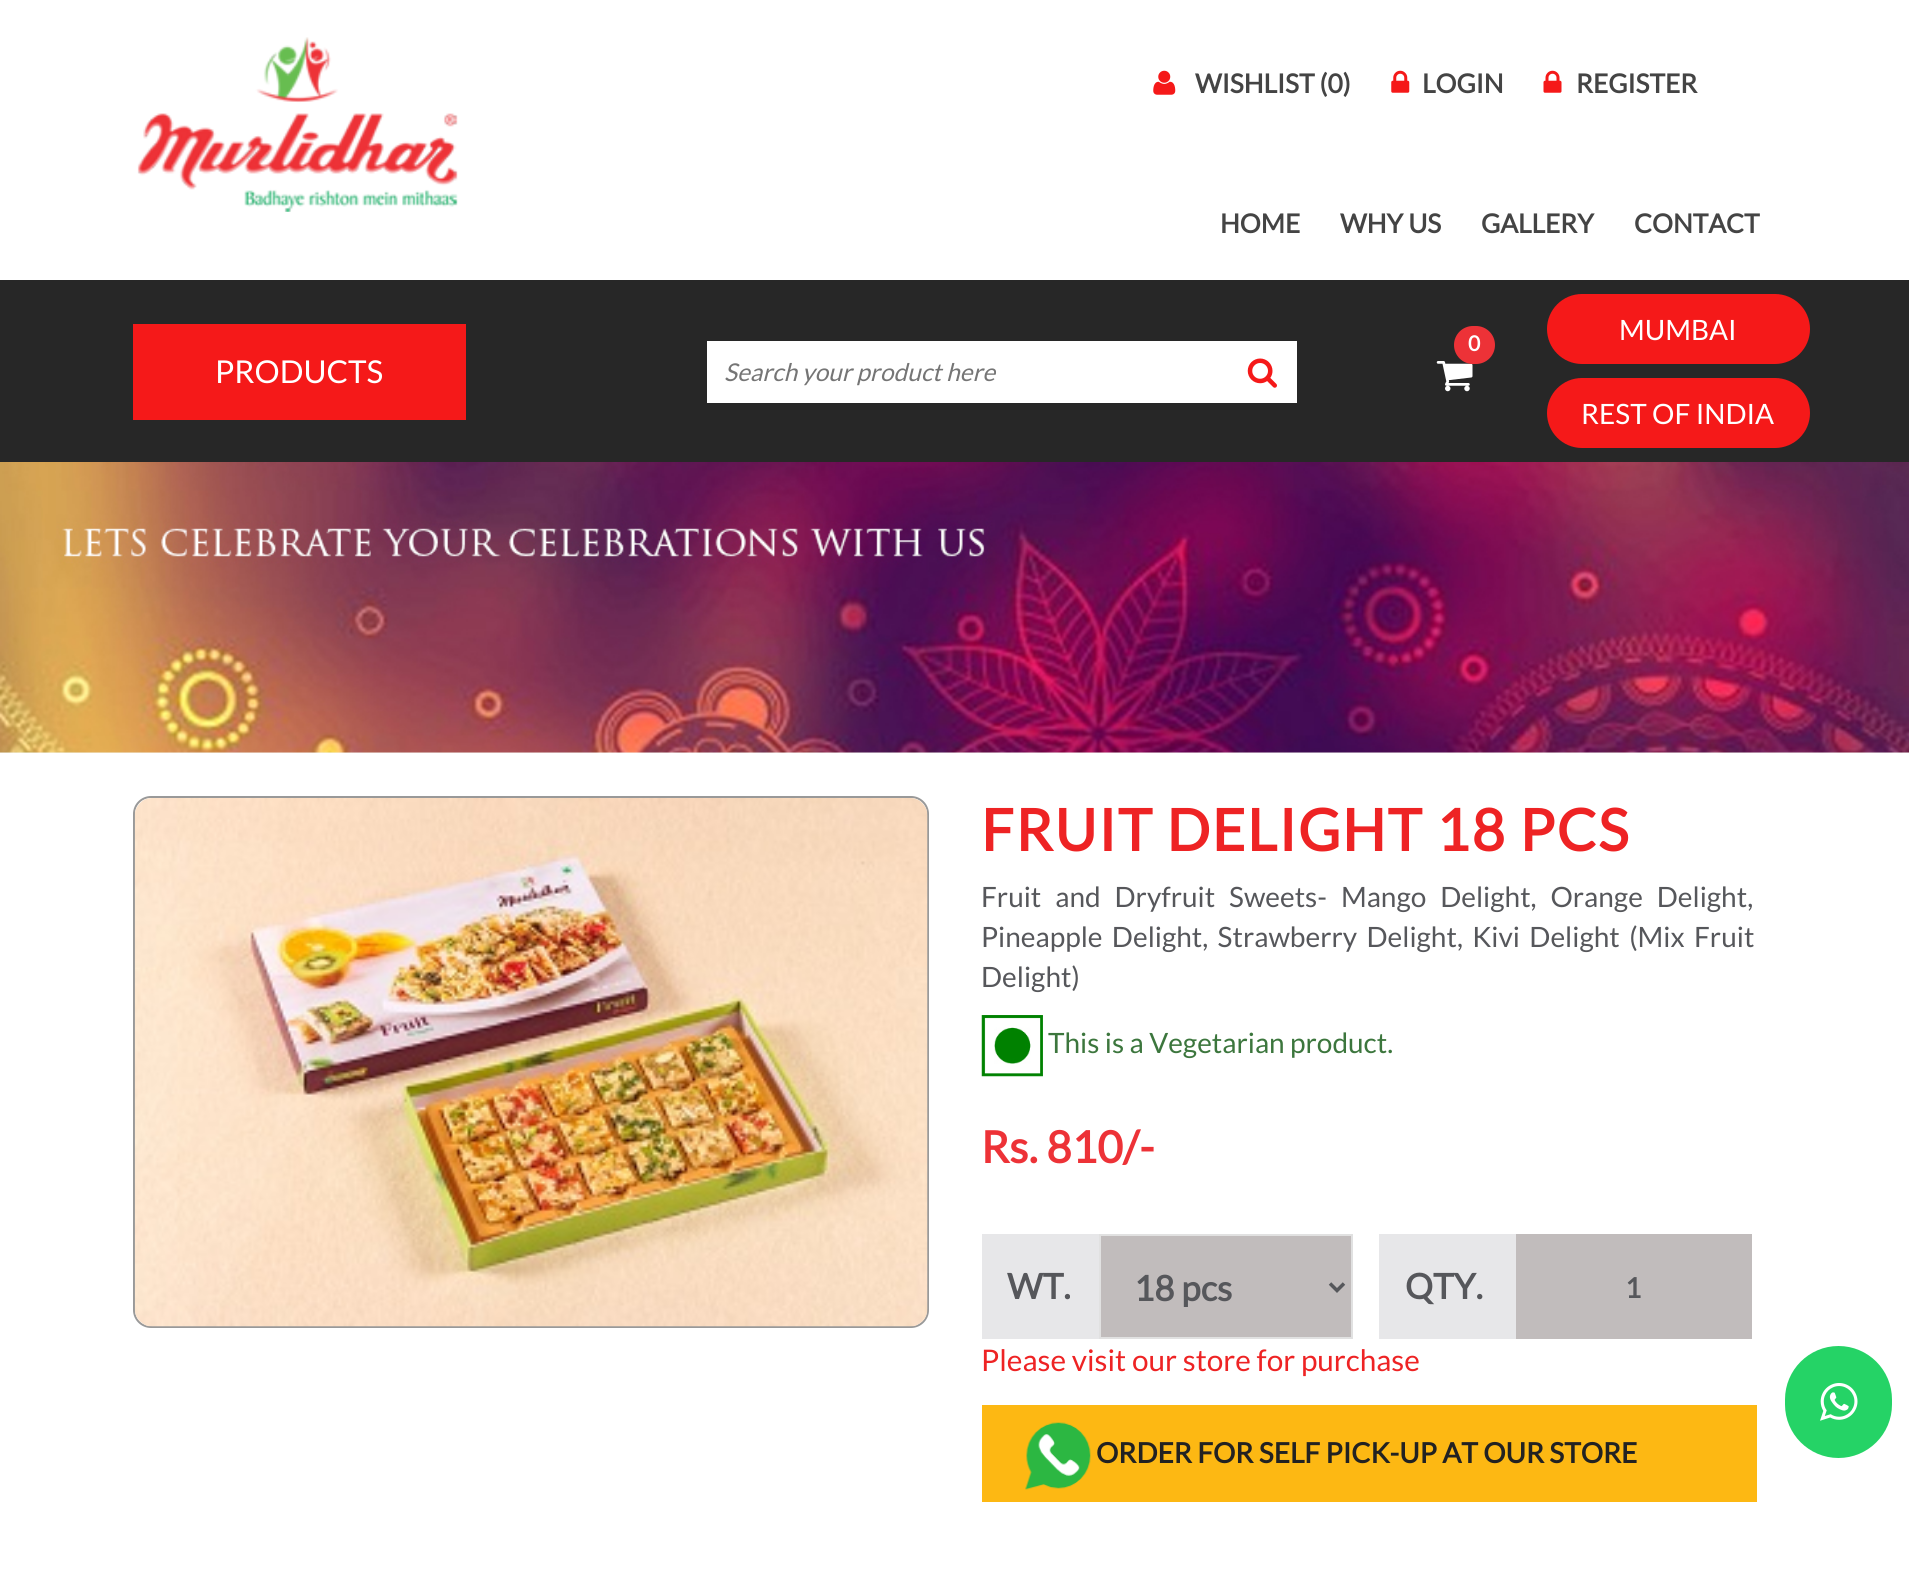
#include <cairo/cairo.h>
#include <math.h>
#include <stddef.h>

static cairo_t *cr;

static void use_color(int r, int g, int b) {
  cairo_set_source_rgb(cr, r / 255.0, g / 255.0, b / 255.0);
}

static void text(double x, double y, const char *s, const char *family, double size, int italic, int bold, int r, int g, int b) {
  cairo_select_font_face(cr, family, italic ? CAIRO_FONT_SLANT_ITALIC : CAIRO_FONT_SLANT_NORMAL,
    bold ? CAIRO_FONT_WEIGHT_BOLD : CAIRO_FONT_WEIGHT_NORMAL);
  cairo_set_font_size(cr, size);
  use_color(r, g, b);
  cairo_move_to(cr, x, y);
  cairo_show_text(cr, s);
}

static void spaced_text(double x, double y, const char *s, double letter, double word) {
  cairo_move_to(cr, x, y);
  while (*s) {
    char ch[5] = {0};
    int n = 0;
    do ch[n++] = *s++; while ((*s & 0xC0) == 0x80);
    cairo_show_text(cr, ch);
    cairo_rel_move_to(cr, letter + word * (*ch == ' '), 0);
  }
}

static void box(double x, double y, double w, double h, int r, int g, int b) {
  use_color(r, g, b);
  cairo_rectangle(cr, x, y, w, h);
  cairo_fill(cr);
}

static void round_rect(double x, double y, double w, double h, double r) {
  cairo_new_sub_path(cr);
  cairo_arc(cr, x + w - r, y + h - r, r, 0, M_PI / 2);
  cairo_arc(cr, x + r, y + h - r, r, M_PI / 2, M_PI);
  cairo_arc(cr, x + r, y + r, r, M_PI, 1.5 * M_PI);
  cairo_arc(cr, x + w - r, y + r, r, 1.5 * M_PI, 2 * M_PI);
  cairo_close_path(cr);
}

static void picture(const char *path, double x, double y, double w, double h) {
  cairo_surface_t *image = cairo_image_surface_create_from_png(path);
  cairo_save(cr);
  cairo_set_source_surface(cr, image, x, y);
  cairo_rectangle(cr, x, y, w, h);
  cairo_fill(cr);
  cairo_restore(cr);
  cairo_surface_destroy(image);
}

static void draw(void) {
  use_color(243, 245, 238);
  cairo_paint(cr);
  box(0, 0, 1909, 280, 255, 255, 255);
  picture("img_01.png", 137, 37, 321, 175);
  picture("img_02.png", 1153, 70, 23, 25);
  picture("img_03.png", 1391, 70, 19, 23);
  picture("img_04.png", 1543, 70, 19, 23);
  box(0, 280, 1909, 182, 39, 39, 39);
  picture("img_05.png", 1436, 361, 37, 31);
  use_color(237, 50, 55);
  round_rect(1454, 326, 41, 38, 19);
  cairo_fill(cr);
  use_color(245, 25, 25);
  round_rect(1547, 294, 263, 70, 35);
  cairo_fill(cr);
  round_rect(1547, 378, 263, 70, 35);
  cairo_fill(cr);
  box(133, 324, 333, 96, 245, 25, 25);
  box(707, 341, 590, 62, 255, 255, 255);
  picture("img_06.png", 1247, 358, 30, 30);
  picture("img_07.png", 0, 462, 1909, 291);
  box(0, 753, 1909, 818, 255, 255, 255);
  round_rect(134, 797, 794, 530, 17);
  use_color(153, 153, 153);
  cairo_stroke(cr);
  picture("img_08.png", 134, 798, 794, 529);
  picture("img_09.png", 981, 1015, 62, 62);
  box(982, 1234, 117, 105, 231, 231, 233);
  use_color(193, 188, 188);
  cairo_rectangle(cr, 1100, 1235, 252, 103);
  cairo_fill_preserve(cr);
  use_color(225, 225, 225);
  cairo_stroke(cr);
  cairo_new_path(cr);
  cairo_move_to(cr, 1330, 1283.5);
  cairo_line_to(cr, 1337, 1290.5);
  cairo_line_to(cr, 1344, 1283.5);
  use_color(86, 87, 91);
  cairo_set_line_width(cr, 3.5);
  cairo_stroke(cr);
  box(1379, 1234, 137, 105, 231, 231, 233);
  box(1516, 1234, 236, 105, 193, 188, 188);
  box(982, 1405, 775, 97, 253, 184, 19);
  picture("img_10.png", 1025, 1422, 66, 68);
  use_color(37, 211, 102);
  round_rect(1785, 1346, 107, 112, 53.5);
  cairo_fill(cr);
  picture("img_11.png", 1820, 1383, 38, 38);
  text(1195, 93, "WISHLIST (0)", "Lato", 26.25, 0, 1, 68, 68, 68);
  text(1422, 93, "LOGIN", "Lato", 26.25, 0, 1, 68, 68, 68);
  text(1576, 93, "REGISTER", "Lato", 26.25, 0, 1, 68, 68, 68);
  text(1220, 233, "HOME", "Lato", 26.25, 0, 1, 68, 68, 68);
  text(1340, 233, "WHY US", "Lato", 26.25, 0, 1, 68, 68, 68);
  text(1481, 233, "GALLERY", "Lato", 26.25, 0, 1, 68, 68, 68);
  text(1634, 233, "CONTACT", "Lato", 26.25, 0, 1, 68, 68, 68);
  text(1468, 351, "0", "Lato", 21, 0, 1, 255, 255, 255);
  text(1619, 340, "MUMBAI", "Lato", 28, 0, 0, 255, 255, 255);
  text(1581, 424, "REST OF INDIA", "Lato", 28, 0, 0, 255, 255, 255);
  text(215, 383, "PRODUCTS", "Lato", 31.5, 0, 0, 255, 255, 255);
  text(724, 381, "Search your product here", "Lato", 24.5, 1, 0, 117, 117, 117);
  cairo_select_font_face(cr, "Lato", CAIRO_FONT_SLANT_NORMAL, CAIRO_FONT_WEIGHT_BOLD);
  cairo_set_font_size(cr, 57.75);
  use_color(238, 35, 36);
  spaced_text(981, 851, "FRUIT DELIGHT 18 PCS", 1.75, 0);
  cairo_select_font_face(cr, "Lato", CAIRO_FONT_SLANT_NORMAL, CAIRO_FONT_WEIGHT_NORMAL);
  cairo_set_font_size(cr, 28);
  use_color(86, 87, 91);
  spaced_text(981, 907, "Fruit and Dryfruit Sweets- Mango Delight, Orange Delight,", 0, 8.5);
  spaced_text(981, 947, "Pineapple Delight, Strawberry Delight, Kivi Delight (Mix Fruit", 0, 4);
  text(981, 987, "Delight)", "Lato", 28, 0, 0, 86, 87, 91);
  text(1048, 1053, "This is a Vegetarian product.", "Lato", 28, 0, 0, 60, 118, 61);
  text(981, 1163, "Rs. 810/-", "Lato", 44, 0, 1, 237, 50, 55);
  text(1007, 1299, "WT.", "Lato", 35, 0, 1, 86, 87, 91);
  text(1134, 1301, "18 pcs", "Lato", 35, 0, 1, 86, 87, 91);
  text(1405, 1299, "QTY.", "Lato", 35, 0, 1, 86, 87, 91);
  text(1625, 1298, "1", "Lato", 28, 0, 1, 86, 87, 91);
  text(981, 1371, "Please visit our store for purchase", "Lato", 29.75, 0, 0, 238, 35, 36);
  text(1096, 1463, "ORDER FOR SELF PICK-UP AT OUR STORE", "Lato", 28, 0, 1, 34, 34, 34);
}

int main(void) {
  cairo_surface_t *surface = cairo_image_surface_create(CAIRO_FORMAT_RGB24, 1909, 1571);
  cr = cairo_create(surface);
  cairo_font_options_t *options = cairo_font_options_create();
  cairo_font_options_set_hint_metrics(options, CAIRO_HINT_METRICS_OFF);
  cairo_font_options_set_hint_style(options, CAIRO_HINT_STYLE_NONE);
  cairo_set_font_options(cr, options);
  cairo_set_miter_limit(cr, 4);
  draw();
  cairo_surface_write_to_png(surface, "out.png");
  cairo_font_options_destroy(options);
  cairo_destroy(cr);
  cairo_surface_destroy(surface);
  return 0;
}
